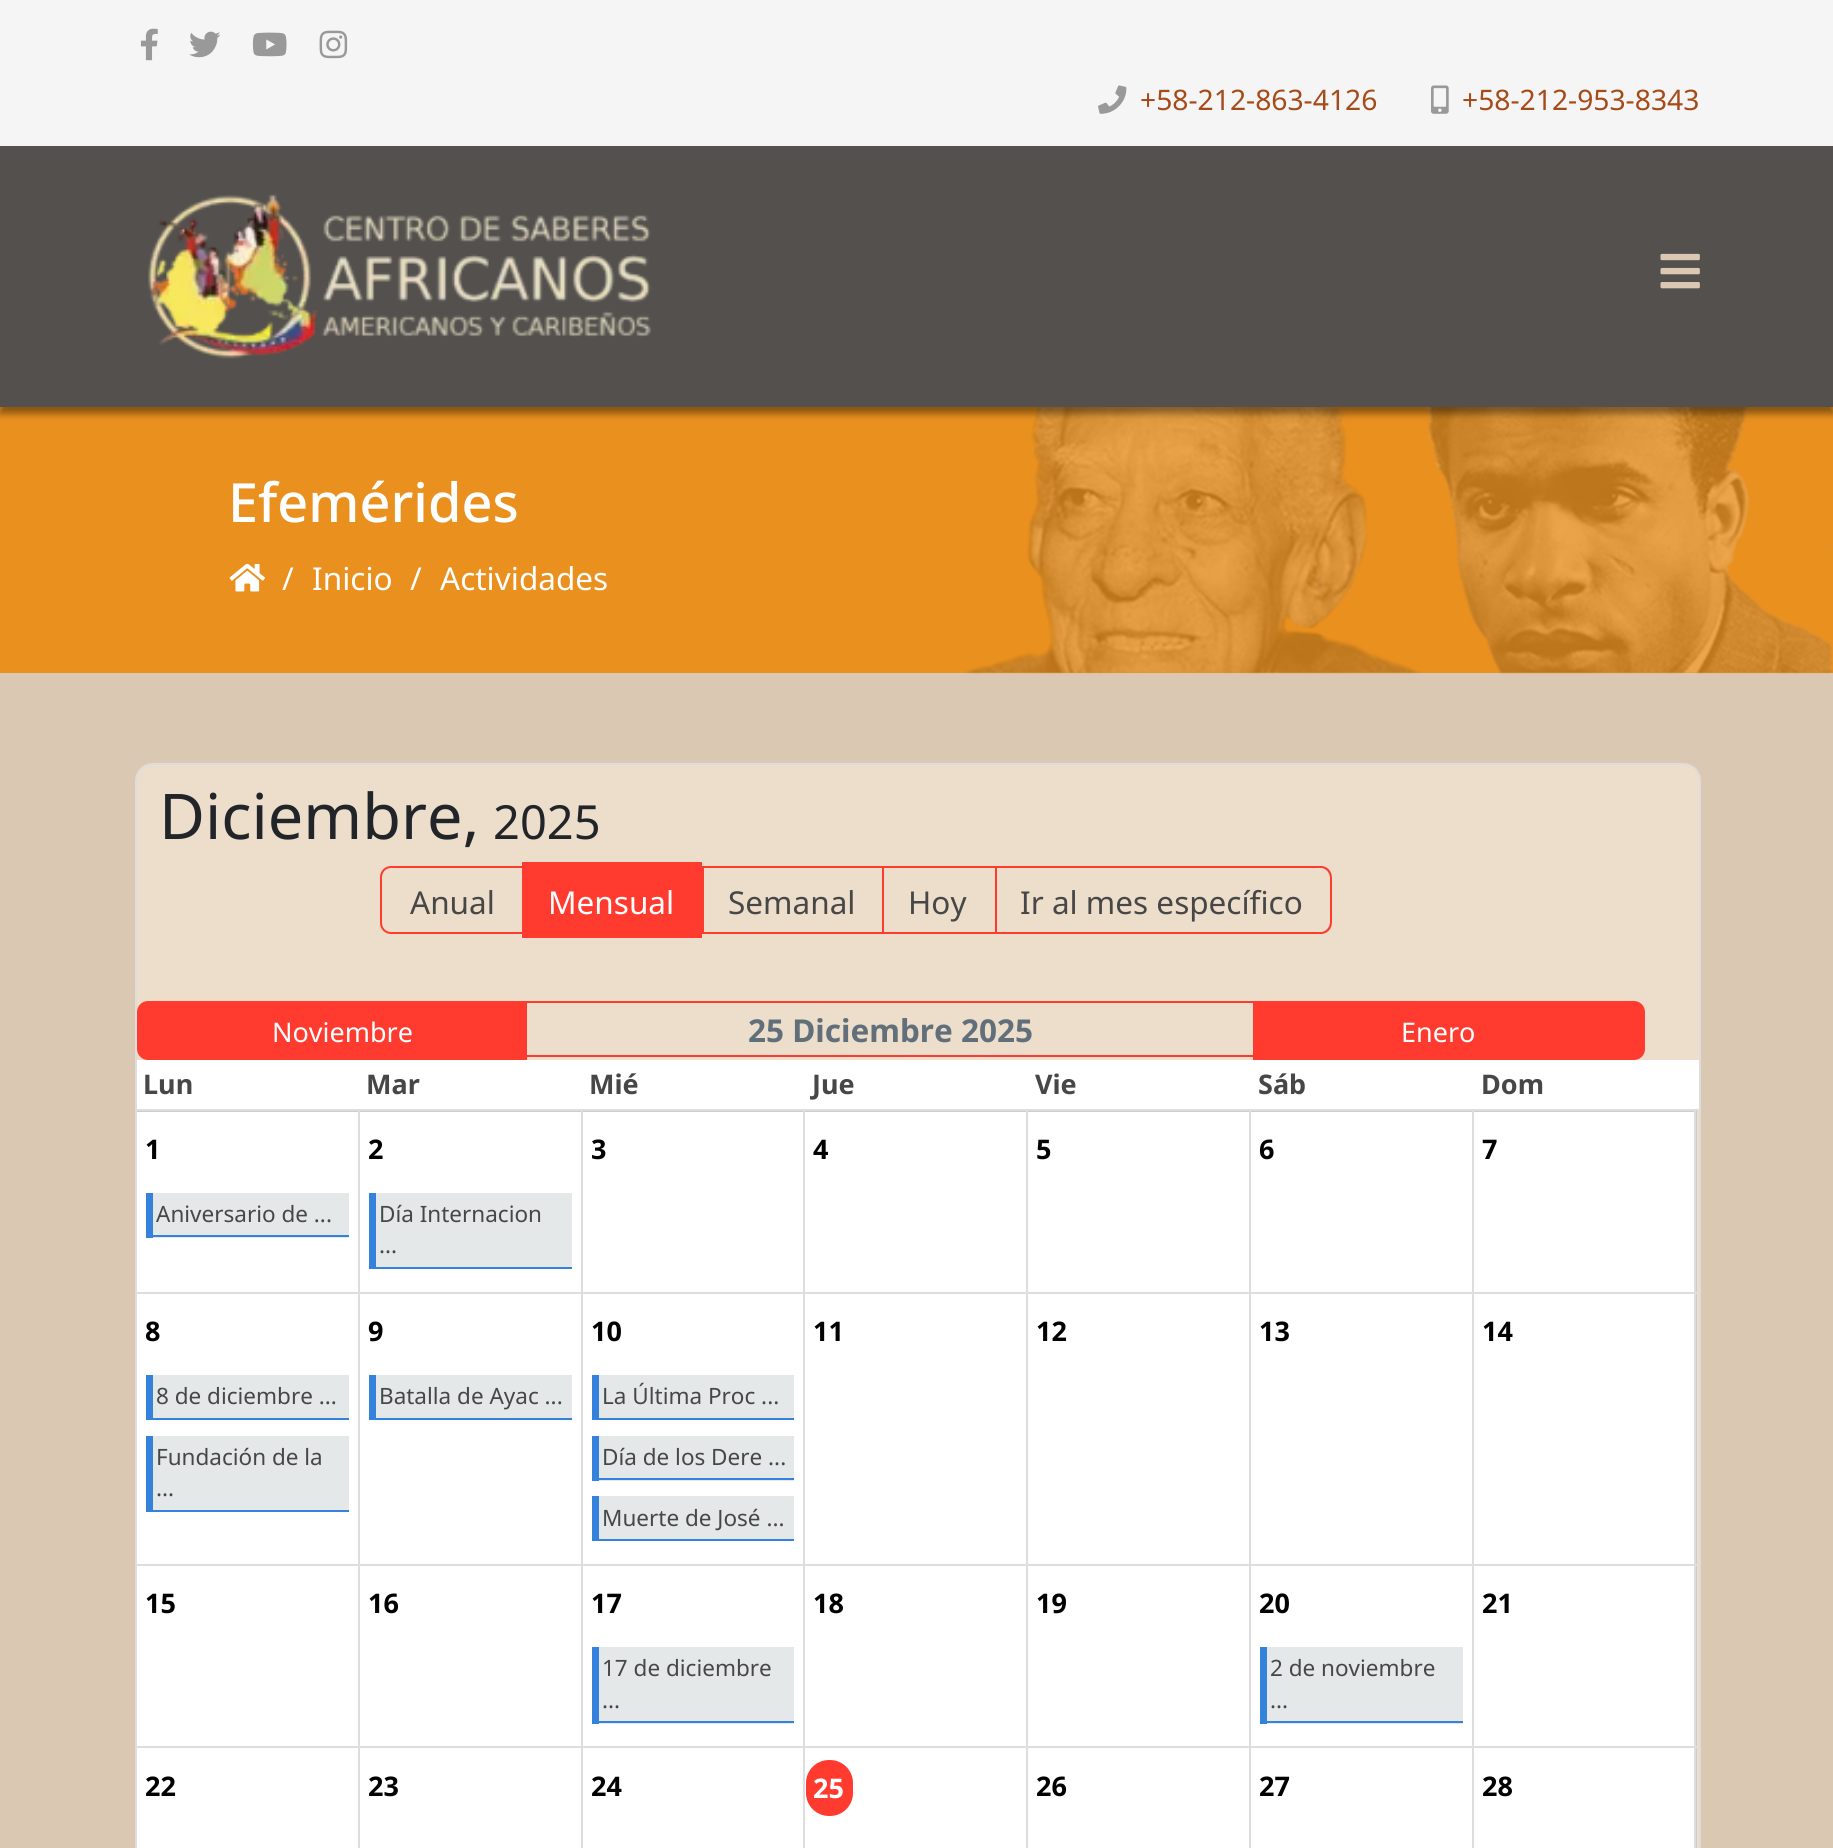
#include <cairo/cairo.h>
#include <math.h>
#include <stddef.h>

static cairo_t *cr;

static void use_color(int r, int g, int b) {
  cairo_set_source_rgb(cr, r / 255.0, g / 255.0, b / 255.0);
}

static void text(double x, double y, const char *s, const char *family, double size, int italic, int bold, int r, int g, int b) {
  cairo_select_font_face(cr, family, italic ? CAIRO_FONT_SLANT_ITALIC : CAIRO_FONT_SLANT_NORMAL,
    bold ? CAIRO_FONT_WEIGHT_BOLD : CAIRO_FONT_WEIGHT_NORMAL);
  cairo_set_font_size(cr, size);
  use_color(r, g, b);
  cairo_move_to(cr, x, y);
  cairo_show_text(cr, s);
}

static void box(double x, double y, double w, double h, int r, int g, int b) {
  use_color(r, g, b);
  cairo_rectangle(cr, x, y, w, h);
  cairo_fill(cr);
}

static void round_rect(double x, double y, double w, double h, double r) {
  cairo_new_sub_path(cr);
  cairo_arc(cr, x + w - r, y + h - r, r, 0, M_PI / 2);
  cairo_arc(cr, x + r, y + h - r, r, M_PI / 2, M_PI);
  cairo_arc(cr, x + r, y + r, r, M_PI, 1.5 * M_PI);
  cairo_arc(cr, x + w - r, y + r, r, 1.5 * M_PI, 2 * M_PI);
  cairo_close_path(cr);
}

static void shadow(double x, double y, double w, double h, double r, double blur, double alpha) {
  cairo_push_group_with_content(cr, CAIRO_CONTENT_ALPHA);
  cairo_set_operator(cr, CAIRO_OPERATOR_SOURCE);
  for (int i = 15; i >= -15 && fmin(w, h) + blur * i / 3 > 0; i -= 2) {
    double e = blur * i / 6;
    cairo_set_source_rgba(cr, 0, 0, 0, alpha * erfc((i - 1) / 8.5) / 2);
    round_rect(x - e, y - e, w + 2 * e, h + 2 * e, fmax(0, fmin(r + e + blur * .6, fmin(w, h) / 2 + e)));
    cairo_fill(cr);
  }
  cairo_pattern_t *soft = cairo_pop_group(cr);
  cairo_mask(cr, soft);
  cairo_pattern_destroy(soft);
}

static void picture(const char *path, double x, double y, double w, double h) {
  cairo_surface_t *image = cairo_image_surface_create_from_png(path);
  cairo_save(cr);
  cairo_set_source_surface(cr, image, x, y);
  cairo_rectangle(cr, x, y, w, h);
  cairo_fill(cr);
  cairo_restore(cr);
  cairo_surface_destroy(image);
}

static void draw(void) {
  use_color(219, 200, 178);
  cairo_paint(cr);
  box(0, 0, 1833, 146, 245, 245, 245);
  picture("img_01.png", 140, 28, 18, 33);
  picture("img_02.png", 189, 31, 32, 27);
  picture("img_03.png", 252, 32, 35, 25);
  picture("img_04.png", 319, 30, 29, 29);
  picture("img_05.png", 1098, 85, 29, 29);
  picture("img_06.png", 1431, 85, 18, 29);
  box(0, 407, 1833, 266, 233, 144, 31);
  picture("img_09.png", 965, 407, 868, 267);
  use_color(0, 0, 0);
  shadow(0, 153, 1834, 261, 0, 3.5, 0.4);
  box(0, 146, 1833, 261, 83, 80, 77);
  picture("img_07.png", 148, 193, 503, 166);
  picture("img_08.png", 1660, 253, 40, 36);
  picture("img_10.png", 229, 563, 36, 29);
  use_color(237, 221, 203);
  round_rect(136, 764, 1564, 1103, 17);
  cairo_fill_preserve(cr);
  use_color(221, 221, 221);
  cairo_stroke(cr);
  cairo_new_path(cr);
  cairo_move_to(cr, 391, 867);
  cairo_line_to(cr, 523, 867);
  cairo_line_to(cr, 523, 933);
  cairo_line_to(cr, 391, 933);
  cairo_curve_to(cr, 385.5, 933, 381, 928.5, 381, 923);
  cairo_line_to(cr, 381, 877);
  cairo_curve_to(cr, 381, 871.5, 385.5, 867, 391, 867);
  cairo_close_path(cr);
  use_color(255, 59, 48);
  cairo_stroke(cr);
  box(702, 866, 2, 68, 255, 59, 48);
  box(522, 862, 180, 76, 255, 59, 48);
  box(700, 866, 184, 2, 255, 59, 48);
  box(882, 866, 2, 68, 255, 59, 48);
  box(700, 932, 184, 2, 255, 59, 48);
  box(882, 866, 115, 2, 255, 59, 48);
  box(995, 866, 2, 68, 255, 59, 48);
  box(882, 932, 115, 2, 255, 59, 48);
  cairo_set_fill_rule(cr, CAIRO_FILL_RULE_EVEN_ODD);
  cairo_new_path(cr);
  cairo_move_to(cr, 992, 866);
  cairo_line_to(cr, 1321, 866);
  cairo_curve_to(cr, 1327, 866, 1332, 871, 1332, 878);
  cairo_line_to(cr, 1332, 922);
  cairo_curve_to(cr, 1332, 929, 1327, 934, 1321, 934);
  cairo_line_to(cr, 992, 934);
  cairo_close_path(cr);
  cairo_move_to(cr, 992, 868);
  cairo_line_to(cr, 1321, 868);
  cairo_curve_to(cr, 1326, 868, 1330, 873, 1330, 878);
  cairo_line_to(cr, 1330, 922);
  cairo_curve_to(cr, 1330, 927, 1326, 932, 1321, 932);
  cairo_line_to(cr, 992, 932);
  cairo_close_path(cr);
  cairo_fill(cr);
  cairo_new_path(cr);
  cairo_move_to(cr, 148, 1002);
  cairo_line_to(cr, 526, 1002);
  cairo_line_to(cr, 526, 1059);
  cairo_line_to(cr, 148, 1059);
  cairo_curve_to(cr, 142.5, 1059, 138, 1054.5, 138, 1049);
  cairo_line_to(cr, 138, 1012);
  cairo_curve_to(cr, 138, 1006.5, 142.5, 1002, 148, 1002);
  cairo_close_path(cr);
  cairo_fill_preserve(cr);
  cairo_stroke(cr);
  box(527, 1001, 726, 2, 255, 59, 48);
  box(527, 1055, 726, 2, 255, 59, 48);
  cairo_new_path(cr);
  cairo_move_to(cr, 1254, 1002);
  cairo_line_to(cr, 1634, 1002);
  cairo_curve_to(cr, 1639.5, 1002, 1644, 1006.5, 1644, 1012);
  cairo_line_to(cr, 1644, 1049);
  cairo_curve_to(cr, 1644, 1054.5, 1639.5, 1059, 1634, 1059);
  cairo_line_to(cr, 1254, 1059);
  cairo_close_path(cr);
  cairo_fill_preserve(cr);
  cairo_stroke(cr);
  box(137, 1060, 1562, 49, 255, 255, 255);
  box(137, 1111, 1560, 737, 204, 204, 204);
  box(135, 1109, 1562, 2, 221, 221, 221);
  box(1694, 1109, 2, 739, 221, 221, 221);
  box(137, 1112, 221, 180, 255, 255, 255);
  box(153, 1193, 196, 45, 228, 232, 232);
  box(146, 1235, 203, 2, 52, 130, 219);
  box(146, 1193, 7, 45, 52, 130, 219);
  box(360, 1112, 221, 180, 255, 255, 255);
  box(1472, 1292, 225, 2, 221, 221, 221);
  box(1472, 1564, 225, 2, 221, 221, 221);
  box(1472, 1746, 225, 2, 221, 221, 221);
  box(1472, 1746, 2, 102, 221, 221, 221);
  box(1249, 1746, 225, 2, 221, 221, 221);
  box(1472, 1564, 2, 184, 221, 221, 221);
  box(1249, 1564, 225, 2, 221, 221, 221);
  box(1472, 1292, 2, 274, 221, 221, 221);
  box(1249, 1292, 225, 2, 221, 221, 221);
  box(1249, 1746, 2, 102, 221, 221, 221);
  box(1026, 1746, 225, 2, 221, 221, 221);
  box(1249, 1564, 2, 184, 221, 221, 221);
  box(1026, 1564, 225, 2, 221, 221, 221);
  box(1249, 1292, 2, 274, 221, 221, 221);
  box(1026, 1292, 225, 2, 221, 221, 221);
  box(1026, 1746, 2, 102, 221, 221, 221);
  box(1026, 1564, 2, 184, 221, 221, 221);
  box(803, 1564, 225, 2, 221, 221, 221);
  box(1026, 1292, 2, 274, 221, 221, 221);
  box(803, 1292, 225, 2, 221, 221, 221);
  box(581, 1746, 225, 2, 221, 221, 221);
  box(803, 1746, 2, 102, 221, 221, 221);
  box(803, 1746, 225, 2, 221, 221, 221);
  box(803, 1564, 2, 184, 221, 221, 221);
  box(581, 1564, 225, 2, 221, 221, 221);
  box(803, 1292, 2, 274, 221, 221, 221);
  box(581, 1292, 225, 2, 221, 221, 221);
  box(581, 1746, 2, 102, 221, 221, 221);
  box(358, 1746, 225, 2, 221, 221, 221);
  box(581, 1564, 2, 184, 221, 221, 221);
  box(358, 1564, 225, 2, 221, 221, 221);
  box(581, 1292, 2, 274, 221, 221, 221);
  box(358, 1292, 225, 2, 221, 221, 221);
  box(358, 1746, 2, 102, 221, 221, 221);
  box(135, 1746, 225, 2, 221, 221, 221);
  box(358, 1564, 2, 184, 221, 221, 221);
  box(135, 1564, 225, 2, 221, 221, 221);
  box(358, 1292, 2, 274, 221, 221, 221);
  box(135, 1292, 225, 2, 221, 221, 221);
  box(358, 1109, 2, 185, 221, 221, 221);
  box(376, 1193, 196, 74, 228, 232, 232);
  box(369, 1267, 203, 2, 52, 130, 219);
  box(369, 1193, 7, 76, 52, 130, 219);
  box(583, 1112, 220, 180, 255, 255, 255);
  box(581, 1109, 2, 185, 221, 221, 221);
  box(805, 1112, 221, 180, 255, 255, 255);
  box(803, 1109, 2, 185, 221, 221, 221);
  box(1028, 1112, 221, 180, 255, 255, 255);
  box(1026, 1109, 2, 185, 221, 221, 221);
  box(1251, 1112, 221, 180, 255, 255, 255);
  box(1249, 1109, 2, 185, 221, 221, 221);
  box(1474, 1112, 220, 180, 255, 255, 255);
  box(1472, 1109, 2, 185, 221, 221, 221);
  box(137, 1294, 221, 270, 255, 255, 255);
  box(153, 1375, 196, 43, 228, 232, 232);
  box(146, 1418, 203, 2, 52, 130, 219);
  box(146, 1375, 7, 45, 52, 130, 219);
  box(153, 1436, 196, 74, 228, 232, 232);
  box(146, 1510, 203, 2, 52, 130, 219);
  box(146, 1436, 7, 76, 52, 130, 219);
  box(360, 1294, 221, 270, 255, 255, 255);
  box(376, 1375, 196, 43, 228, 232, 232);
  box(369, 1418, 203, 2, 52, 130, 219);
  box(369, 1375, 7, 45, 52, 130, 219);
  box(583, 1294, 220, 270, 255, 255, 255);
  box(599, 1375, 195, 43, 228, 232, 232);
  box(592, 1418, 202, 2, 52, 130, 219);
  box(592, 1375, 7, 45, 52, 130, 219);
  box(599, 1436, 195, 45, 228, 232, 232);
  box(592, 1478, 202, 2, 52, 130, 219);
  box(592, 1436, 7, 45, 52, 130, 219);
  box(599, 1496, 195, 43, 228, 232, 232);
  box(592, 1539, 202, 2, 52, 130, 219);
  box(592, 1496, 7, 45, 52, 130, 219);
  box(805, 1294, 221, 270, 255, 255, 255);
  box(1028, 1294, 221, 270, 255, 255, 255);
  box(1251, 1294, 221, 270, 255, 255, 255);
  box(1474, 1294, 220, 270, 255, 255, 255);
  box(137, 1566, 221, 180, 255, 255, 255);
  box(360, 1566, 221, 180, 255, 255, 255);
  box(583, 1566, 220, 180, 255, 255, 255);
  box(599, 1647, 195, 77, 228, 232, 232);
  box(592, 1721, 202, 2, 52, 130, 219);
  box(592, 1647, 7, 77, 52, 130, 219);
  box(805, 1566, 221, 180, 255, 255, 255);
  box(1028, 1566, 221, 180, 255, 255, 255);
  box(1251, 1566, 221, 180, 255, 255, 255);
  box(1267, 1647, 196, 77, 228, 232, 232);
  box(1260, 1721, 203, 2, 52, 130, 219);
  box(1260, 1647, 7, 77, 52, 130, 219);
  box(1474, 1566, 220, 180, 255, 255, 255);
  box(137, 1748, 221, 100, 255, 255, 255);
  box(360, 1748, 221, 100, 255, 255, 255);
  box(583, 1748, 220, 100, 255, 255, 255);
  box(805, 1748, 221, 100, 255, 255, 255);
  use_color(255, 59, 48);
  round_rect(806, 1760, 47, 56, 23);
  cairo_fill(cr);
  box(1028, 1748, 221, 100, 255, 255, 255);
  box(1251, 1748, 221, 100, 255, 255, 255);
  box(1474, 1748, 220, 100, 255, 255, 255);
  text(1140, 110, "+58-212-863-4126", "Noto Sans", 28.25, 0, 0, 165, 74, 24);
  text(1462, 110, "+58-212-953-8343", "Noto Sans", 28.25, 0, 0, 165, 74, 24);
  text(228, 522, "Efemérides", "Noto Sans Medium", 54, 0, 0, 255, 255, 255);
  text(282, 590, "/", "Noto Sans", 31.5, 0, 0, 255, 255, 255);
  text(312, 590, "Inicio", "Noto Sans", 31.5, 0, 0, 255, 255, 255);
  text(410, 590, "/", "Noto Sans", 31.5, 0, 0, 255, 255, 255);
  text(440, 590, "Actividades", "Noto Sans", 31.5, 0, 0, 255, 255, 255);
  text(159, 839, "Diciembre,", "Noto Sans", 63, 0, 0, 33, 37, 41);
  text(493, 839, "2025", "Noto Sans", 47, 0, 0, 33, 37, 41);
  text(410, 914, "Anual", "Noto Sans", 31.5, 0, 0, 71, 71, 71);
  text(548, 914, "Mensual", "Noto Sans", 31.5, 0, 0, 255, 255, 255);
  text(728, 914, "Semanal", "Noto Sans", 31.5, 0, 0, 71, 71, 71);
  text(908, 914, "Hoy", "Noto Sans", 31.5, 0, 0, 71, 71, 71);
  text(1020, 914, "Ir al mes específico", "Noto Sans", 31.5, 0, 0, 71, 71, 71);
  text(272, 1042, "Noviembre", "Noto Sans", 27, 0, 0, 255, 255, 255);
  text(748, 1042, "25 Diciembre 2025", "Noto Sans", 31.5, 0, 1, 96, 111, 121);
  text(1401, 1042, "Enero", "Noto Sans", 27, 0, 0, 255, 255, 255);
  text(143, 1094, "Lun", "Noto Sans", 27, 0, 1, 71, 71, 71);
  text(366, 1094, "Mar", "Noto Sans", 27, 0, 1, 71, 71, 71);
  text(589, 1094, "Mié", "Noto Sans", 27, 0, 1, 71, 71, 71);
  text(812, 1094, "Jue", "Noto Sans", 27, 0, 1, 71, 71, 71);
  text(1035, 1094, "Vie", "Noto Sans", 27, 0, 1, 71, 71, 71);
  text(1258, 1094, "Sáb", "Noto Sans", 27, 0, 1, 71, 71, 71);
  text(1481, 1094, "Dom", "Noto Sans", 27, 0, 1, 71, 71, 71);
  text(145, 1159, "1", "Noto Sans", 27, 0, 1, 0, 0, 0);
  text(156, 1222, "Aniversario de ...", "Noto Sans", 22.5, 0, 0, 71, 71, 71);
  text(368, 1159, "2", "Noto Sans", 27, 0, 1, 0, 0, 0);
  text(379, 1222, "Día Internacion", "Noto Sans", 22.5, 0, 0, 71, 71, 71);
  text(379, 1253, "...", "Noto Sans", 22.5, 0, 0, 71, 71, 71);
  text(591, 1159, "3", "Noto Sans", 27, 0, 1, 0, 0, 0);
  text(813, 1159, "4", "Noto Sans", 27, 0, 1, 0, 0, 0);
  text(1036, 1159, "5", "Noto Sans", 27, 0, 1, 0, 0, 0);
  text(1259, 1159, "6", "Noto Sans", 27, 0, 1, 0, 0, 0);
  text(1482, 1159, "7", "Noto Sans", 27, 0, 1, 0, 0, 0);
  text(145, 1341, "8", "Noto Sans", 27, 0, 1, 0, 0, 0);
  text(156, 1404, "8 de diciembre ...", "Noto Sans", 22.5, 0, 0, 71, 71, 71);
  text(156, 1465, "Fundación de la", "Noto Sans", 22.5, 0, 0, 71, 71, 71);
  text(156, 1496, "...", "Noto Sans", 22.5, 0, 0, 71, 71, 71);
  text(368, 1341, "9", "Noto Sans", 27, 0, 1, 0, 0, 0);
  text(379, 1404, "Batalla de Ayac ...", "Noto Sans", 22.5, 0, 0, 71, 71, 71);
  text(591, 1341, "10", "Noto Sans", 27, 0, 1, 0, 0, 0);
  text(602, 1404, "La Última Proc ...", "Noto Sans", 22.5, 0, 0, 71, 71, 71);
  text(602, 1465, "Día de los Dere ...", "Noto Sans", 22.5, 0, 0, 71, 71, 71);
  text(602, 1526, "Muerte de José ...", "Noto Sans", 22.5, 0, 0, 71, 71, 71);
  text(813, 1341, "11", "Noto Sans", 27, 0, 1, 0, 0, 0);
  text(1036, 1341, "12", "Noto Sans", 27, 0, 1, 0, 0, 0);
  text(1259, 1341, "13", "Noto Sans", 27, 0, 1, 0, 0, 0);
  text(1482, 1341, "14", "Noto Sans", 27, 0, 1, 0, 0, 0);
  text(145, 1613, "15", "Noto Sans", 27, 0, 1, 0, 0, 0);
  text(368, 1613, "16", "Noto Sans", 27, 0, 1, 0, 0, 0);
  text(591, 1613, "17", "Noto Sans", 27, 0, 1, 0, 0, 0);
  text(602, 1676, "17 de diciembre", "Noto Sans", 22.5, 0, 0, 71, 71, 71);
  text(602, 1708, "...", "Noto Sans", 22.5, 0, 0, 71, 71, 71);
  text(813, 1613, "18", "Noto Sans", 27, 0, 1, 0, 0, 0);
  text(1036, 1613, "19", "Noto Sans", 27, 0, 1, 0, 0, 0);
  text(1259, 1613, "20", "Noto Sans", 27, 0, 1, 0, 0, 0);
  text(1270, 1676, "2 de noviembre", "Noto Sans", 22.5, 0, 0, 71, 71, 71);
  text(1270, 1708, "...", "Noto Sans", 22.5, 0, 0, 71, 71, 71);
  text(1482, 1613, "21", "Noto Sans", 27, 0, 1, 0, 0, 0);
  text(145, 1796, "22", "Noto Sans", 27, 0, 1, 0, 0, 0);
  text(368, 1796, "23", "Noto Sans", 27, 0, 1, 0, 0, 0);
  text(591, 1796, "24", "Noto Sans", 27, 0, 1, 0, 0, 0);
  text(813, 1798, "25", "Noto Sans", 27, 0, 1, 255, 255, 255);
  text(1036, 1796, "26", "Noto Sans", 27, 0, 1, 0, 0, 0);
  text(1259, 1796, "27", "Noto Sans", 27, 0, 1, 0, 0, 0);
  text(1482, 1796, "28", "Noto Sans", 27, 0, 1, 0, 0, 0);
}

int main(void) {
  cairo_surface_t *surface = cairo_image_surface_create(CAIRO_FORMAT_RGB24, 1833, 1848);
  cr = cairo_create(surface);
  cairo_font_options_t *options = cairo_font_options_create();
  cairo_font_options_set_hint_metrics(options, CAIRO_HINT_METRICS_OFF);
  cairo_font_options_set_hint_style(options, CAIRO_HINT_STYLE_NONE);
  cairo_set_font_options(cr, options);
  cairo_set_miter_limit(cr, 4);
  draw();
  cairo_surface_write_to_png(surface, "out.png");
  cairo_font_options_destroy(options);
  cairo_destroy(cr);
  cairo_surface_destroy(surface);
  return 0;
}
